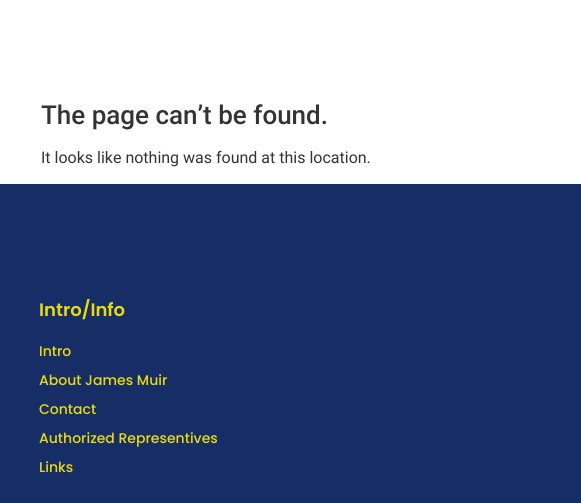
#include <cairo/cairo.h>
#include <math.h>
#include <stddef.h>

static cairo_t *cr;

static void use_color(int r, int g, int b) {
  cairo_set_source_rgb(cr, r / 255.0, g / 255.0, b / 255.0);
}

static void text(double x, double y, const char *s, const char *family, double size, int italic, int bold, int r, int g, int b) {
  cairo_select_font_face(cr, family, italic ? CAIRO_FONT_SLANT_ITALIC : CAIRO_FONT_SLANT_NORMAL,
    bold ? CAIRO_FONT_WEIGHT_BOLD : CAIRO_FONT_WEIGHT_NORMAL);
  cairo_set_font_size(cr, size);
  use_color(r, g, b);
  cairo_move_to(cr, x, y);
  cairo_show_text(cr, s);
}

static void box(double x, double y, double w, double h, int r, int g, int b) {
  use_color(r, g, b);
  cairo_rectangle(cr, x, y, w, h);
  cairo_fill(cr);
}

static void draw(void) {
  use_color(255, 255, 255);
  cairo_paint(cr);
  box(0, 184, 581, 319, 22, 45, 102);
  text(41, 124, "The page can’t be found.", "Roboto Medium", 26, 0, 0, 51, 51, 51);
  text(41, 163, "It looks like nothing was found at this location.", "Roboto", 16, 0, 0, 51, 51, 51);
  text(39, 316, "Intro/Info", "Poppins SemiBold", 18, 0, 0, 234, 219, 16);
  text(39, 356, "Intro", "Poppins Medium", 14, 0, 0, 234, 219, 16);
  text(39, 385, "About James Muir", "Poppins Medium", 14, 0, 0, 234, 219, 16);
  text(39, 414, "Contact", "Poppins Medium", 14, 0, 0, 234, 219, 16);
  text(39, 443, "Authorized Representives", "Poppins Medium", 14, 0, 0, 234, 219, 16);
  text(39, 472, "Links", "Poppins Medium", 14, 0, 0, 234, 219, 16);
}

int main(void) {
  cairo_surface_t *surface = cairo_image_surface_create(CAIRO_FORMAT_RGB24, 581, 503);
  cr = cairo_create(surface);
  cairo_font_options_t *options = cairo_font_options_create();
  cairo_font_options_set_hint_metrics(options, CAIRO_HINT_METRICS_OFF);
  cairo_font_options_set_hint_style(options, CAIRO_HINT_STYLE_NONE);
  cairo_set_font_options(cr, options);
  cairo_set_miter_limit(cr, 4);
  draw();
  cairo_surface_write_to_png(surface, "out.png");
  cairo_font_options_destroy(options);
  cairo_destroy(cr);
  cairo_surface_destroy(surface);
  return 0;
}
